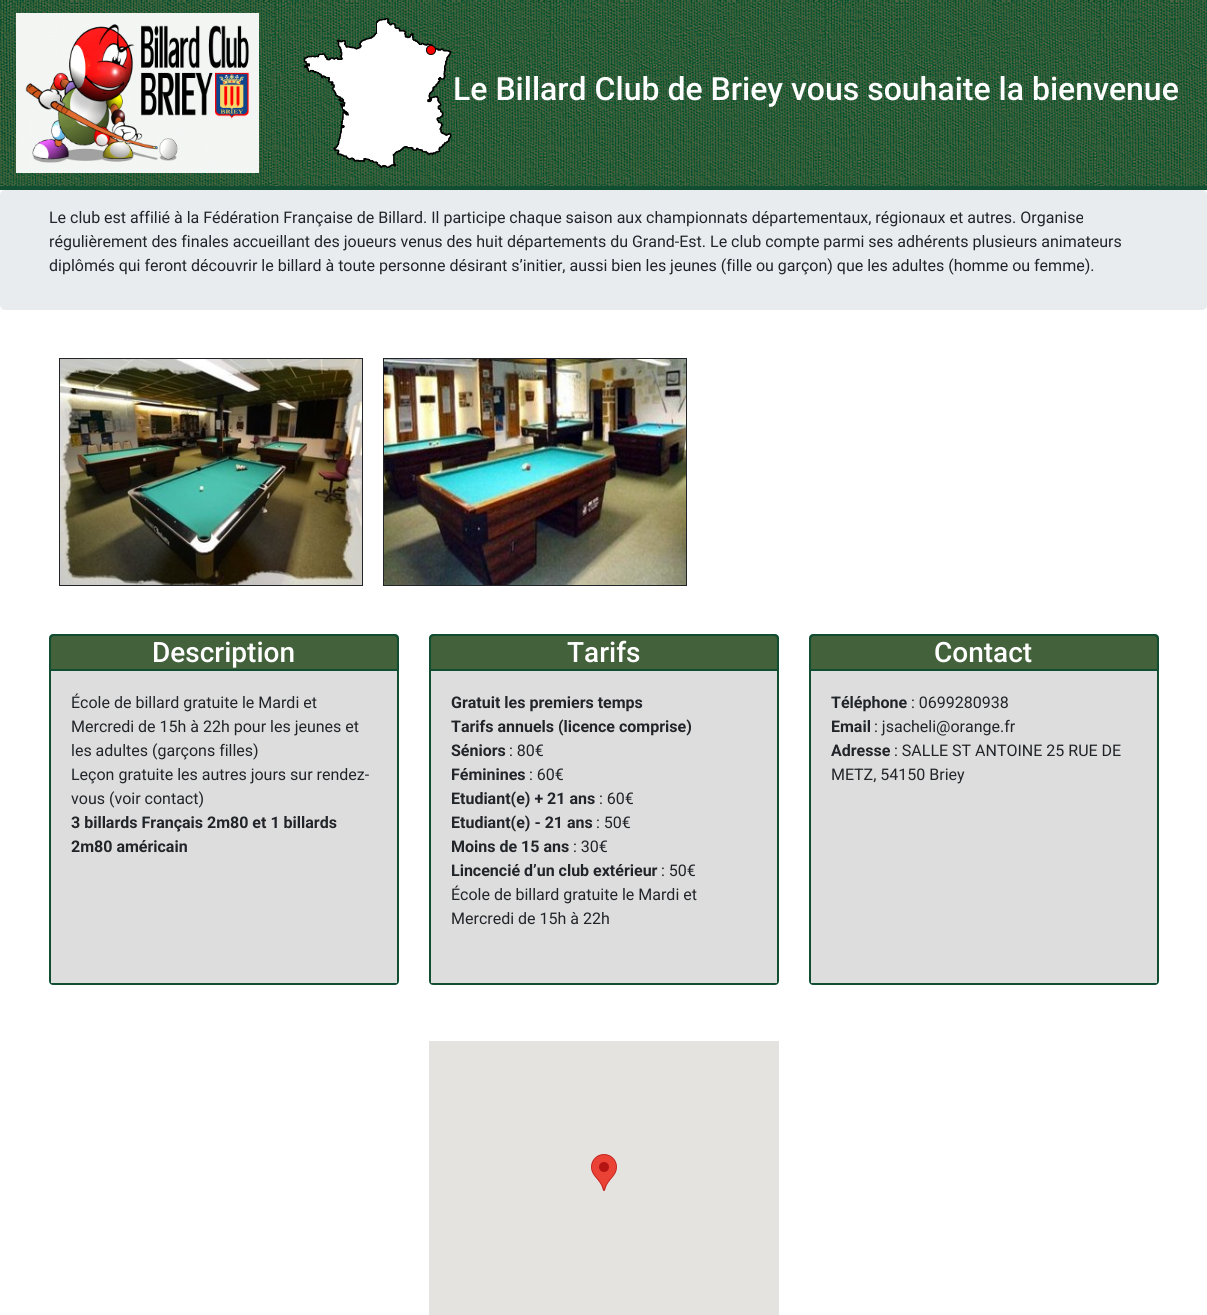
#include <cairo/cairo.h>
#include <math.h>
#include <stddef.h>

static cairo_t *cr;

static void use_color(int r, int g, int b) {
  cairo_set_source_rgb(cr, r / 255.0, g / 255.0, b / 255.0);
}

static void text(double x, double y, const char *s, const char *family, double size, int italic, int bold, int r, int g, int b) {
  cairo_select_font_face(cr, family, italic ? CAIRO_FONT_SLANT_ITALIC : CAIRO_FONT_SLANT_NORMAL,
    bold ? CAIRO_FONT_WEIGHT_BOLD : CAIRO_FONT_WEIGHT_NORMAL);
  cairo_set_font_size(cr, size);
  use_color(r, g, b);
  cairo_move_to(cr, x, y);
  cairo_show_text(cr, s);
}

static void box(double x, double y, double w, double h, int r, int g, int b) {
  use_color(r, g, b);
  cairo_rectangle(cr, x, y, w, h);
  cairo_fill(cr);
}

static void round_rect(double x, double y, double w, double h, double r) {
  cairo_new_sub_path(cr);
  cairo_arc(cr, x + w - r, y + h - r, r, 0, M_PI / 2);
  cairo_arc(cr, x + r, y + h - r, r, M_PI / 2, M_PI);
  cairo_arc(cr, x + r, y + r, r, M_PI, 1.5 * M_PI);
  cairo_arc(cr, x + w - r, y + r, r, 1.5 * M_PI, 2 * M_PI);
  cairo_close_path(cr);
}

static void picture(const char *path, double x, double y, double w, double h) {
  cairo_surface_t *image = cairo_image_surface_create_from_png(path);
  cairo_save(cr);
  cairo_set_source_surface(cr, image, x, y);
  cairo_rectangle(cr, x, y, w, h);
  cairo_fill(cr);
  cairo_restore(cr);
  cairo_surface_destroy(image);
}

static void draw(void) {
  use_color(255, 255, 255);
  cairo_paint(cr);
  picture("img_01.png", 0, 0, 1207, 186);
  box(0, 186, 1207, 4, 17, 77, 49);
  picture("img_02.png", 16, 13, 243, 160);
  picture("img_03.png", 303, 18, 149, 150);
  use_color(255, 0, 0);
  cairo_arc(cr, 431, 50, 4.5, 0, 2 * M_PI);
  cairo_fill_preserve(cr);
  use_color(0, 0, 0);
  cairo_set_line_width(cr, 1);
  cairo_stroke(cr);
  use_color(233, 236, 239);
  round_rect(0, 190, 1207, 120, 5);
  cairo_fill(cr);
  cairo_rectangle(cr, 59.5, 358.5, 303, 227);
  use_color(33, 37, 41);
  cairo_stroke(cr);
  picture("img_04.png", 60, 359, 302, 226);
  cairo_rectangle(cr, 383.5, 358.5, 303, 227);
  cairo_stroke(cr);
  picture("img_05.png", 384, 359, 302, 226);
  use_color(17, 77, 49);
  round_rect(50, 635, 348, 349, 3);
  cairo_fill_preserve(cr);
  cairo_set_line_width(cr, 2);
  cairo_stroke(cr);
  use_color(67, 97, 59);
  cairo_new_path(cr);
  cairo_move_to(cr, 54, 636);
  cairo_line_to(cr, 394, 636);
  cairo_curve_to(cr, 395.5, 636, 397, 637.5, 397, 639);
  cairo_line_to(cr, 397, 671);
  cairo_line_to(cr, 51, 671);
  cairo_line_to(cr, 51, 639);
  cairo_curve_to(cr, 51, 637.5, 52.5, 636, 54, 636);
  cairo_close_path(cr);
  cairo_fill(cr);
  box(51, 669, 346, 2, 17, 77, 49);
  box(51, 671, 346, 312, 221, 221, 221);
  use_color(17, 77, 49);
  round_rect(430, 635, 348, 349, 3);
  cairo_fill_preserve(cr);
  cairo_stroke(cr);
  use_color(67, 97, 59);
  cairo_new_path(cr);
  cairo_move_to(cr, 434, 636);
  cairo_line_to(cr, 774, 636);
  cairo_curve_to(cr, 775.5, 636, 777, 637.5, 777, 639);
  cairo_line_to(cr, 777, 671);
  cairo_line_to(cr, 431, 671);
  cairo_line_to(cr, 431, 639);
  cairo_curve_to(cr, 431, 637.5, 432.5, 636, 434, 636);
  cairo_close_path(cr);
  cairo_fill(cr);
  box(431, 669, 346, 2, 17, 77, 49);
  box(431, 671, 346, 312, 221, 221, 221);
  use_color(17, 77, 49);
  round_rect(810, 635, 348, 349, 3);
  cairo_fill_preserve(cr);
  cairo_stroke(cr);
  use_color(67, 97, 59);
  cairo_new_path(cr);
  cairo_move_to(cr, 814, 636);
  cairo_line_to(cr, 1154, 636);
  cairo_curve_to(cr, 1155.5, 636, 1157, 637.5, 1157, 639);
  cairo_line_to(cr, 1157, 671);
  cairo_line_to(cr, 811, 671);
  cairo_line_to(cr, 811, 639);
  cairo_curve_to(cr, 811, 637.5, 812.5, 636, 814, 636);
  cairo_close_path(cr);
  cairo_fill(cr);
  box(811, 669, 346, 2, 17, 77, 49);
  box(811, 671, 346, 312, 221, 221, 221);
  box(429, 1041, 350, 274, 229, 227, 223);
  picture("img_06.png", 591, 1154, 26, 37);
  text(453, 100, "Le Billard Club de Briey vous souhaite la bienvenue", "Roboto Medium", 32, 0, 0, 255, 255, 255);
  text(49, 223, "Le club est affilié à la Fédération Française de Billard. Il participe chaque saison aux championnats départementaux, régionaux et autres. Organise", "Roboto", 16, 0, 0, 33, 37, 41);
  text(49, 247, "régulièrement des finales accueillant des joueurs venus des huit départements du Grand-Est. Le club compte parmi ses adhérents plusieurs animateurs", "Roboto", 16, 0, 0, 33, 37, 41);
  text(49, 271, "diplômés qui feront découvrir le billard à toute personne désirant s’initier, aussi bien les jeunes (fille ou garçon) que les adultes (homme ou femme).", "Roboto", 16, 0, 0, 33, 37, 41);
  text(152, 662, "Description", "Roboto Medium", 28, 0, 0, 255, 255, 255);
  text(71, 708, "École de billard gratuite le Mardi et", "Roboto", 16, 0, 0, 33, 37, 41);
  text(71, 732, "Mercredi de 15h à 22h pour les jeunes et", "Roboto", 16, 0, 0, 33, 37, 41);
  text(71, 756, "les adultes (garçons filles)", "Roboto", 16, 0, 0, 33, 37, 41);
  text(71, 780, "Leçon gratuite les autres jours sur rendez-", "Roboto", 16, 0, 0, 33, 37, 41);
  text(71, 804, "vous (voir contact)", "Roboto", 16, 0, 0, 33, 37, 41);
  text(71, 828, "3 billards Français 2m80 et 1 billards", "Roboto", 16, 0, 1, 33, 37, 41);
  text(71, 852, "2m80 américain", "Roboto", 16, 0, 1, 33, 37, 41);
  text(567, 662, "Tarifs", "Roboto Medium", 28, 0, 0, 255, 255, 255);
  text(451, 708, "Gratuit les premiers temps", "Roboto", 16, 0, 1, 33, 37, 41);
  text(451, 732, "Tarifs annuels (licence comprise)", "Roboto", 16, 0, 1, 33, 37, 41);
  text(451, 756, "Séniors", "Roboto", 16, 0, 1, 33, 37, 41);
  text(509, 756, ": 80€", "Roboto", 16, 0, 0, 33, 37, 41);
  text(451, 780, "Féminines", "Roboto", 16, 0, 1, 33, 37, 41);
  text(529, 780, ": 60€", "Roboto", 16, 0, 0, 33, 37, 41);
  text(451, 804, "Etudiant(e) + 21 ans", "Roboto", 16, 0, 1, 33, 37, 41);
  text(599, 804, ": 60€", "Roboto", 16, 0, 0, 33, 37, 41);
  text(451, 828, "Etudiant(e) - 21 ans", "Roboto", 16, 0, 1, 33, 37, 41);
  text(596, 828, ": 50€", "Roboto", 16, 0, 0, 33, 37, 41);
  text(451, 852, "Moins de 15 ans", "Roboto", 16, 0, 1, 33, 37, 41);
  text(573, 852, ": 30€", "Roboto", 16, 0, 0, 33, 37, 41);
  text(451, 876, "Lincencié d’un club extérieur", "Roboto", 16, 0, 1, 33, 37, 41);
  text(661, 876, ": 50€", "Roboto", 16, 0, 0, 33, 37, 41);
  text(451, 900, "École de billard gratuite le Mardi et", "Roboto", 16, 0, 0, 33, 37, 41);
  text(451, 924, "Mercredi de 15h à 22h", "Roboto", 16, 0, 0, 33, 37, 41);
  text(934, 662, "Contact", "Roboto Medium", 28, 0, 0, 255, 255, 255);
  text(831, 708, "Téléphone", "Roboto", 16, 0, 1, 33, 37, 41);
  text(911, 708, ": 0699280938", "Roboto", 16, 0, 0, 33, 37, 41);
  text(831, 732, "Email", "Roboto", 16, 0, 1, 33, 37, 41);
  text(874, 732, ": jsacheli@orange.fr", "Roboto", 16, 0, 0, 33, 37, 41);
  text(831, 756, "Adresse", "Roboto", 16, 0, 1, 33, 37, 41);
  text(894, 756, ": SALLE ST ANTOINE 25 RUE DE", "Roboto", 16, 0, 0, 33, 37, 41);
  text(831, 780, "METZ, 54150 Briey", "Roboto", 16, 0, 0, 33, 37, 41);
}

int main(void) {
  cairo_surface_t *surface = cairo_image_surface_create(CAIRO_FORMAT_RGB24, 1207, 1315);
  cr = cairo_create(surface);
  cairo_font_options_t *options = cairo_font_options_create();
  cairo_font_options_set_hint_metrics(options, CAIRO_HINT_METRICS_OFF);
  cairo_font_options_set_hint_style(options, CAIRO_HINT_STYLE_NONE);
  cairo_set_font_options(cr, options);
  cairo_set_miter_limit(cr, 4);
  draw();
  cairo_surface_write_to_png(surface, "out.png");
  cairo_font_options_destroy(options);
  cairo_destroy(cr);
  cairo_surface_destroy(surface);
  return 0;
}
